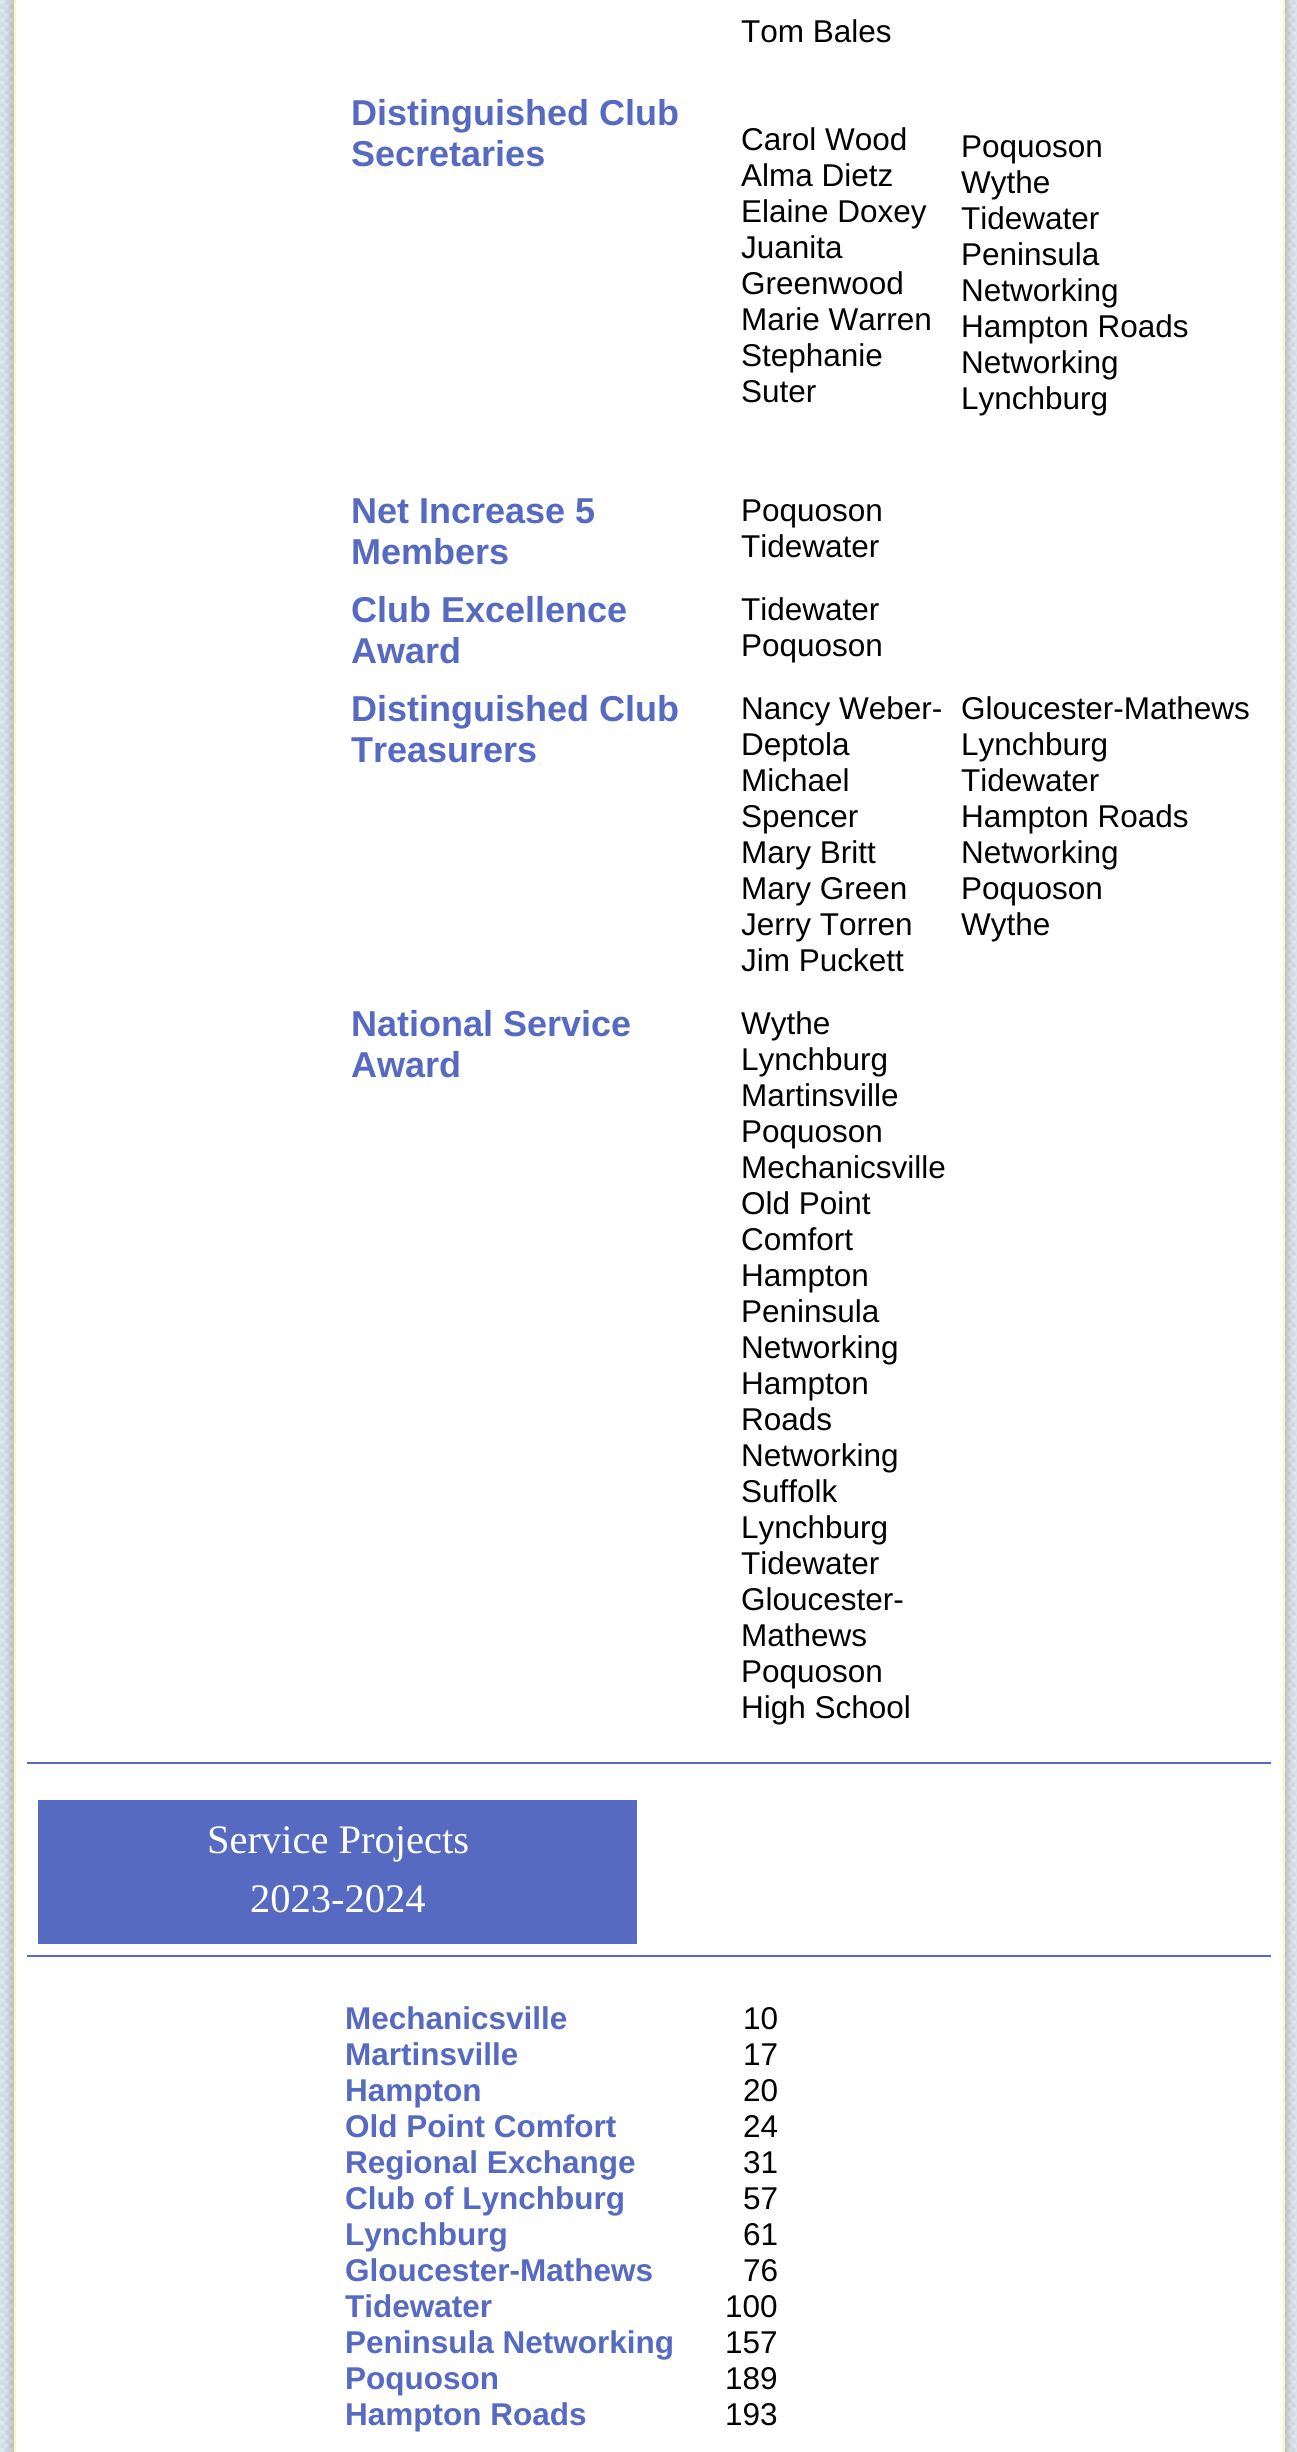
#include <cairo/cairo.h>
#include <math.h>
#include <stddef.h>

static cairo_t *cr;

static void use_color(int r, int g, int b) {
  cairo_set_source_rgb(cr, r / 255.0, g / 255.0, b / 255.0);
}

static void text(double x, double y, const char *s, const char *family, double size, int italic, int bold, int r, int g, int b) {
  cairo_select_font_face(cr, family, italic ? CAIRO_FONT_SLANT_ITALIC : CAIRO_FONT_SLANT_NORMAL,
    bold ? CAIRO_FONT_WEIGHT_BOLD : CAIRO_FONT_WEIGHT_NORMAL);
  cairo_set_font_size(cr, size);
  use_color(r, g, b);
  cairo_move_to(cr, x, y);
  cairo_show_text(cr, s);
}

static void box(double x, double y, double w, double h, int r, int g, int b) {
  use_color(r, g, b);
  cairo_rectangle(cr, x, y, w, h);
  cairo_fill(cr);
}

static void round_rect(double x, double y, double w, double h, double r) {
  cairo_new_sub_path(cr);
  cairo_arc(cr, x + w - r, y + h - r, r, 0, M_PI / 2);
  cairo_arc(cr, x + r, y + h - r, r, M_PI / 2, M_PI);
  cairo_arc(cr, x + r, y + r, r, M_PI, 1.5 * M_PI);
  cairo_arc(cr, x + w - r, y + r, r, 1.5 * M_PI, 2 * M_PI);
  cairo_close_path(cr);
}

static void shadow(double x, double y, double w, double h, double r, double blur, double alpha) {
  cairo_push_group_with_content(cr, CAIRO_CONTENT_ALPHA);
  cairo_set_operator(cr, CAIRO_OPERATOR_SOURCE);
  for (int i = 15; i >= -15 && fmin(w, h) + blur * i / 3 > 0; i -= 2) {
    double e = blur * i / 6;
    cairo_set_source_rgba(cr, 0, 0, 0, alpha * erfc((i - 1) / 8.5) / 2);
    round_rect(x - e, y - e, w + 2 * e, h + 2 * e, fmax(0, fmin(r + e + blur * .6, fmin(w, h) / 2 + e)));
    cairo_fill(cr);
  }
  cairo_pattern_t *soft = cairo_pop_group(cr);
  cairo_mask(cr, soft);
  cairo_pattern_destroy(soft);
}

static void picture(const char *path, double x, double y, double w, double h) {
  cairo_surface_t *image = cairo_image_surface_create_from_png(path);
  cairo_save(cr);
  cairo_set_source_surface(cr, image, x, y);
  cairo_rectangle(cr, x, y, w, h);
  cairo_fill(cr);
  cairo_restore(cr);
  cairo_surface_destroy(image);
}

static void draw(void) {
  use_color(226, 232, 238);
  cairo_paint(cr);
  picture("img_01.png", 0, 0, 1297, 2452);
  use_color(0, 0, 0);
  shadow(9, -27, 1280, 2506, 16, 3.5, 0.15);
  use_color(255, 255, 255);
  cairo_rectangle(cr, 15, -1, 1269, 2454);
  cairo_fill_preserve(cr);
  use_color(255, 246, 184);
  cairo_stroke(cr);
  box(27, 1762, 1244, 2, 86, 106, 194);
  box(27, 1955, 1244, 2, 86, 106, 194);
  box(38, 1800, 599, 144, 86, 106, 194);
  text(741, 42, "Tom Bales", "Liberation Sans", 31.5, 0, 0, 0, 0, 0);
  text(351, 125, "Distinguished Club", "Liberation Sans", 36, 0, 1, 86, 106, 194);
  text(351, 166, "Secretaries", "Liberation Sans", 36, 0, 1, 86, 106, 194);
  text(741, 150, "Carol Wood", "Liberation Sans", 31.5, 0, 0, 0, 0, 0);
  text(741, 186, "Alma Dietz", "Liberation Sans", 31.5, 0, 0, 0, 0, 0);
  text(741, 222, "Elaine Doxey", "Liberation Sans", 31.5, 0, 0, 0, 0, 0);
  text(741, 258, "Juanita", "Liberation Sans", 31.5, 0, 0, 0, 0, 0);
  text(741, 294, "Greenwood", "Liberation Sans", 31.5, 0, 0, 0, 0, 0);
  text(741, 330, "Marie Warren", "Liberation Sans", 31.5, 0, 0, 0, 0, 0);
  text(741, 366, "Stephanie", "Liberation Sans", 31.5, 0, 0, 0, 0, 0);
  text(741, 402, "Suter", "Liberation Sans", 31.5, 0, 0, 0, 0, 0);
  text(961, 157, "Poquoson", "Liberation Sans", 31.5, 0, 0, 0, 0, 0);
  text(961, 193, "Wythe", "Liberation Sans", 31.5, 0, 0, 0, 0, 0);
  text(961, 229, "Tidewater", "Liberation Sans", 31.5, 0, 0, 0, 0, 0);
  text(961, 265, "Peninsula", "Liberation Sans", 31.5, 0, 0, 0, 0, 0);
  text(961, 301, "Networking", "Liberation Sans", 31.5, 0, 0, 0, 0, 0);
  text(961, 337, "Hampton Roads", "Liberation Sans", 31.5, 0, 0, 0, 0, 0);
  text(961, 373, "Networking", "Liberation Sans", 31.5, 0, 0, 0, 0, 0);
  text(961, 409, "Lynchburg", "Liberation Sans", 31.5, 0, 0, 0, 0, 0);
  text(351, 523, "Net Increase 5", "Liberation Sans", 36, 0, 1, 86, 106, 194);
  text(351, 564, "Members", "Liberation Sans", 36, 0, 1, 86, 106, 194);
  text(741, 521, "Poquoson", "Liberation Sans", 31.5, 0, 0, 0, 0, 0);
  text(741, 557, "Tidewater", "Liberation Sans", 31.5, 0, 0, 0, 0, 0);
  text(351, 622, "Club Excellence", "Liberation Sans", 36, 0, 1, 86, 106, 194);
  text(351, 663, "Award", "Liberation Sans", 36, 0, 1, 86, 106, 194);
  text(741, 620, "Tidewater", "Liberation Sans", 31.5, 0, 0, 0, 0, 0);
  text(741, 656, "Poquoson", "Liberation Sans", 31.5, 0, 0, 0, 0, 0);
  text(351, 721, "Distinguished Club", "Liberation Sans", 36, 0, 1, 86, 106, 194);
  text(351, 762, "Treasurers", "Liberation Sans", 36, 0, 1, 86, 106, 194);
  text(741, 719, "Nancy Weber-", "Liberation Sans", 31.5, 0, 0, 0, 0, 0);
  text(741, 755, "Deptola", "Liberation Sans", 31.5, 0, 0, 0, 0, 0);
  text(741, 791, "Michael", "Liberation Sans", 31.5, 0, 0, 0, 0, 0);
  text(741, 827, "Spencer", "Liberation Sans", 31.5, 0, 0, 0, 0, 0);
  text(741, 863, "Mary Britt", "Liberation Sans", 31.5, 0, 0, 0, 0, 0);
  text(741, 899, "Mary Green", "Liberation Sans", 31.5, 0, 0, 0, 0, 0);
  text(741, 935, "Jerry Torren", "Liberation Sans", 31.5, 0, 0, 0, 0, 0);
  text(741, 971, "Jim Puckett", "Liberation Sans", 31.5, 0, 0, 0, 0, 0);
  text(961, 719, "Gloucester-Mathews", "Liberation Sans", 31.5, 0, 0, 0, 0, 0);
  text(961, 755, "Lynchburg", "Liberation Sans", 31.5, 0, 0, 0, 0, 0);
  text(961, 791, "Tidewater", "Liberation Sans", 31.5, 0, 0, 0, 0, 0);
  text(961, 827, "Hampton Roads", "Liberation Sans", 31.5, 0, 0, 0, 0, 0);
  text(961, 863, "Networking", "Liberation Sans", 31.5, 0, 0, 0, 0, 0);
  text(961, 899, "Poquoson", "Liberation Sans", 31.5, 0, 0, 0, 0, 0);
  text(961, 935, "Wythe", "Liberation Sans", 31.5, 0, 0, 0, 0, 0);
  text(351, 1036, "National Service", "Liberation Sans", 36, 0, 1, 86, 106, 194);
  text(351, 1077, "Award", "Liberation Sans", 36, 0, 1, 86, 106, 194);
  text(741, 1034, "Wythe", "Liberation Sans", 31.5, 0, 0, 0, 0, 0);
  text(741, 1070, "Lynchburg", "Liberation Sans", 31.5, 0, 0, 0, 0, 0);
  text(741, 1106, "Martinsville", "Liberation Sans", 31.5, 0, 0, 0, 0, 0);
  text(741, 1142, "Poquoson", "Liberation Sans", 31.5, 0, 0, 0, 0, 0);
  text(741, 1178, "Mechanicsville", "Liberation Sans", 31.5, 0, 0, 0, 0, 0);
  text(741, 1214, "Old Point", "Liberation Sans", 31.5, 0, 0, 0, 0, 0);
  text(741, 1250, "Comfort", "Liberation Sans", 31.5, 0, 0, 0, 0, 0);
  text(741, 1286, "Hampton", "Liberation Sans", 31.5, 0, 0, 0, 0, 0);
  text(741, 1322, "Peninsula", "Liberation Sans", 31.5, 0, 0, 0, 0, 0);
  text(741, 1358, "Networking", "Liberation Sans", 31.5, 0, 0, 0, 0, 0);
  text(741, 1394, "Hampton", "Liberation Sans", 31.5, 0, 0, 0, 0, 0);
  text(741, 1430, "Roads", "Liberation Sans", 31.5, 0, 0, 0, 0, 0);
  text(741, 1466, "Networking", "Liberation Sans", 31.5, 0, 0, 0, 0, 0);
  text(741, 1502, "Suffolk", "Liberation Sans", 31.5, 0, 0, 0, 0, 0);
  text(741, 1538, "Lynchburg", "Liberation Sans", 31.5, 0, 0, 0, 0, 0);
  text(741, 1574, "Tidewater", "Liberation Sans", 31.5, 0, 0, 0, 0, 0);
  text(741, 1610, "Gloucester-", "Liberation Sans", 31.5, 0, 0, 0, 0, 0);
  text(741, 1646, "Mathews", "Liberation Sans", 31.5, 0, 0, 0, 0, 0);
  text(741, 1682, "Poquoson", "Liberation Sans", 31.5, 0, 0, 0, 0, 0);
  text(741, 1718, "High School", "Liberation Sans", 31.5, 0, 0, 0, 0, 0);
  text(207, 1853, "Service Projects", "Liberation Serif", 40.5, 0, 0, 255, 255, 255);
  text(250, 1912, "2023-2024", "Liberation Serif", 40.5, 0, 0, 255, 255, 255);
  text(345, 2029, "Mechanicsville", "Liberation Sans", 31.5, 0, 1, 86, 106, 194);
  text(345, 2065, "Martinsville", "Liberation Sans", 31.5, 0, 1, 86, 106, 194);
  text(345, 2101, "Hampton", "Liberation Sans", 31.5, 0, 1, 86, 106, 194);
  text(345, 2137, "Old Point Comfort", "Liberation Sans", 31.5, 0, 1, 86, 106, 194);
  text(345, 2173, "Regional Exchange", "Liberation Sans", 31.5, 0, 1, 86, 106, 194);
  text(345, 2209, "Club of Lynchburg", "Liberation Sans", 31.5, 0, 1, 86, 106, 194);
  text(345, 2245, "Lynchburg", "Liberation Sans", 31.5, 0, 1, 86, 106, 194);
  text(345, 2281, "Gloucester-Mathews", "Liberation Sans", 31.5, 0, 1, 86, 106, 194);
  text(345, 2317, "Tidewater", "Liberation Sans", 31.5, 0, 1, 86, 106, 194);
  text(345, 2353, "Peninsula Networking", "Liberation Sans", 31.5, 0, 1, 86, 106, 194);
  text(345, 2389, "Poquoson", "Liberation Sans", 31.5, 0, 1, 86, 106, 194);
  text(345, 2425, "Hampton Roads", "Liberation Sans", 31.5, 0, 1, 86, 106, 194);
  text(743, 2029, "10", "Liberation Sans", 31.5, 0, 0, 0, 0, 0);
  text(743, 2065, "17", "Liberation Sans", 31.5, 0, 0, 0, 0, 0);
  text(743, 2101, "20", "Liberation Sans", 31.5, 0, 0, 0, 0, 0);
  text(743, 2137, "24", "Liberation Sans", 31.5, 0, 0, 0, 0, 0);
  text(743, 2173, "31", "Liberation Sans", 31.5, 0, 0, 0, 0, 0);
  text(743, 2209, "57", "Liberation Sans", 31.5, 0, 0, 0, 0, 0);
  text(743, 2245, "61", "Liberation Sans", 31.5, 0, 0, 0, 0, 0);
  text(743, 2281, "76", "Liberation Sans", 31.5, 0, 0, 0, 0, 0);
  text(725, 2317, "100", "Liberation Sans", 31.5, 0, 0, 0, 0, 0);
  text(725, 2353, "157", "Liberation Sans", 31.5, 0, 0, 0, 0, 0);
  text(725, 2389, "189", "Liberation Sans", 31.5, 0, 0, 0, 0, 0);
  text(725, 2425, "193", "Liberation Sans", 31.5, 0, 0, 0, 0, 0);
}

int main(void) {
  cairo_surface_t *surface = cairo_image_surface_create(CAIRO_FORMAT_RGB24, 1297, 2452);
  cr = cairo_create(surface);
  cairo_font_options_t *options = cairo_font_options_create();
  cairo_font_options_set_hint_metrics(options, CAIRO_HINT_METRICS_OFF);
  cairo_font_options_set_hint_style(options, CAIRO_HINT_STYLE_NONE);
  cairo_set_font_options(cr, options);
  cairo_set_miter_limit(cr, 4);
  draw();
  cairo_surface_write_to_png(surface, "out.png");
  cairo_font_options_destroy(options);
  cairo_destroy(cr);
  cairo_surface_destroy(surface);
  return 0;
}
